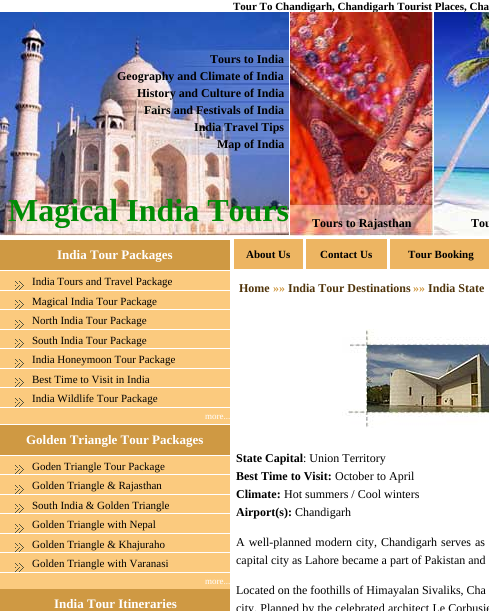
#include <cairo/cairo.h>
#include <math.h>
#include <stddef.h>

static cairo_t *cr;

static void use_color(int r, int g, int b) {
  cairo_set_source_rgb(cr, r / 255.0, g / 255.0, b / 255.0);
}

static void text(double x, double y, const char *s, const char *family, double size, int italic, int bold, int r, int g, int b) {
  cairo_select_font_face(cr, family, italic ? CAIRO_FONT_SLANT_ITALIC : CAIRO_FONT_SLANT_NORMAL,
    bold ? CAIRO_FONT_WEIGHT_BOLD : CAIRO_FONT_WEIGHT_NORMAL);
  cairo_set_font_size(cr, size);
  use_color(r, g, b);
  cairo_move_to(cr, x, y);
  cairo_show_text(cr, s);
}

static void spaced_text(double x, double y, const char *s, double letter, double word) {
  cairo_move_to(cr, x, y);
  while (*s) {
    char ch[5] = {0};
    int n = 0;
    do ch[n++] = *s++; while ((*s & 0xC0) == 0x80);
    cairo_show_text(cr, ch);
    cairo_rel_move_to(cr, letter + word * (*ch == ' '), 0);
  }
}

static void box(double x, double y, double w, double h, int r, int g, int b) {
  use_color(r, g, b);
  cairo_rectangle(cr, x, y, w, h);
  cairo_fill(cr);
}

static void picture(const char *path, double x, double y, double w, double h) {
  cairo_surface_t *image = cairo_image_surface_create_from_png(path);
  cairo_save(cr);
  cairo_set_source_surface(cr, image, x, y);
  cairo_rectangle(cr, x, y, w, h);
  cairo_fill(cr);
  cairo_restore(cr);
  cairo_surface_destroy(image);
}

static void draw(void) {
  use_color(255, 255, 255);
  cairo_paint(cr);
  picture("img_01.png", 0, 12, 289, 224);
  picture("img_03.png", 290, 205, 143, 31);
  picture("img_05.png", 434, 205, 55, 31);
  box(0, 271, 230, 318, 251, 202, 126);
  box(0, 240, 230, 30, 207, 153, 67);
  picture("img_06.png", 15, 281, 9, 9);
  box(0, 290, 230, 1, 255, 255, 255);
  picture("img_06.png", 15, 300, 9, 9);
  box(0, 309, 230, 1, 255, 255, 255);
  picture("img_06.png", 15, 320, 9, 9);
  box(0, 329, 230, 1, 255, 255, 255);
  picture("img_06.png", 15, 339, 9, 9);
  box(0, 348, 230, 1, 255, 255, 255);
  picture("img_06.png", 15, 359, 9, 9);
  box(0, 368, 230, 1, 255, 255, 255);
  picture("img_06.png", 15, 378, 9, 9);
  box(0, 387, 230, 1, 255, 255, 255);
  picture("img_06.png", 15, 398, 9, 9);
  box(0, 407, 230, 1, 255, 255, 255);
  box(0, 424, 230, 1, 255, 255, 255);
  box(0, 425, 230, 30, 207, 153, 67);
  box(0, 455, 230, 1, 255, 255, 255);
  picture("img_06.png", 15, 465, 9, 9);
  box(0, 474, 230, 1, 255, 255, 255);
  picture("img_06.png", 15, 485, 9, 9);
  box(0, 494, 230, 1, 255, 255, 255);
  picture("img_06.png", 15, 504, 9, 9);
  box(0, 513, 230, 1, 255, 255, 255);
  picture("img_06.png", 15, 524, 9, 9);
  box(0, 533, 230, 1, 255, 255, 255);
  picture("img_06.png", 15, 543, 9, 9);
  box(0, 552, 230, 1, 255, 255, 255);
  picture("img_06.png", 15, 563, 9, 9);
  box(0, 572, 230, 1, 255, 255, 255);
  box(0, 589, 230, 22, 207, 153, 67);
  box(234, 239, 69, 30, 237, 181, 98);
  box(306, 239, 81, 30, 237, 181, 98);
  box(390, 239, 99, 30, 237, 181, 98);
  picture("img_07.png", 342, 329, 147, 99);
  text(233, 10, "Tour To Chandigarh, Chandigarh Tourist Places, Cha", "Liberation Serif", 11, 0, 1, 0, 0, 0);
  text(210, 63, "Tours to India", "Liberation Serif", 12, 0, 1, 0, 0, 0);
  text(117, 80, "Geography and Climate of India", "Liberation Serif", 12, 0, 1, 0, 0, 0);
  text(137, 97, "History and Culture of India", "Liberation Serif", 12, 0, 1, 0, 0, 0);
  text(144, 114, "Fairs and Festivals of India", "Liberation Serif", 12, 0, 1, 0, 0, 0);
  text(194, 131, "India Travel Tips", "Liberation Serif", 12, 0, 1, 0, 0, 0);
  text(217, 148, "Map of India", "Liberation Serif", 12, 0, 1, 0, 0, 0);
  text(8, 221, "Magical India Tours", "Liberation Serif", 32, 0, 1, 0, 140, 6);
  picture("img_02.png", 290, 12, 143, 193);
  text(312, 227, "Tours to Rajasthan", "Liberation Serif", 12, 0, 1, 0, 0, 0);
  picture("img_04.png", 434, 12, 55, 193);
  text(471, 227, "Tou", "Liberation Serif", 12, 0, 1, 0, 0, 0);
  text(57, 259, "India Tour Packages", "Liberation Serif", 13, 0, 1, 255, 255, 255);
  text(32, 285, "India Tours and Travel Package", "Liberation Serif", 11, 0, 0, 0, 0, 0);
  text(32, 305, "Magical India Tour Package", "Liberation Serif", 11, 0, 0, 0, 0, 0);
  text(32, 324, "North India Tour Package", "Liberation Serif", 11, 0, 0, 0, 0, 0);
  text(32, 344, "South India Tour Package", "Liberation Serif", 11, 0, 0, 0, 0, 0);
  text(32, 363, "India Honeymoon Tour Package", "Liberation Serif", 11, 0, 0, 0, 0, 0);
  text(32, 383, "Best Time to Visit in India", "Liberation Serif", 11, 0, 0, 0, 0, 0);
  text(32, 402, "India Wildlife Tour Package", "Liberation Serif", 11, 0, 0, 0, 0, 0);
  text(205, 419, "more...", "Liberation Serif", 9, 0, 0, 255, 255, 255);
  text(26, 444, "Golden Triangle Tour Packages", "Liberation Serif", 13, 0, 1, 255, 255, 255);
  text(32, 470, "Goden Triangle Tour Package", "Liberation Serif", 11, 0, 0, 0, 0, 0);
  text(32, 489, "Golden Triangle & Rajasthan", "Liberation Serif", 11, 0, 0, 0, 0, 0);
  text(32, 509, "South India & Golden Triangle", "Liberation Serif", 11, 0, 0, 0, 0, 0);
  text(32, 528, "Golden Triangle with Nepal", "Liberation Serif", 11, 0, 0, 0, 0, 0);
  text(32, 548, "Golden Triangle & Khajuraho", "Liberation Serif", 11, 0, 0, 0, 0, 0);
  text(32, 567, "Golden Triangle with Varanasi", "Liberation Serif", 11, 0, 0, 0, 0, 0);
  text(205, 584, "more...", "Liberation Serif", 9, 0, 0, 255, 255, 255);
  text(54, 608, "India Tour Itineraries", "Liberation Serif", 13, 0, 1, 255, 255, 255);
  text(246, 258, "About Us", "Liberation Serif", 11, 0, 1, 0, 0, 0);
  text(320, 258, "Contact Us", "Liberation Serif", 11, 0, 1, 0, 0, 0);
  text(408, 258, "Tour Booking", "Liberation Serif", 11, 0, 1, 0, 0, 0);
  text(239, 292, "Home", "Liberation Serif", 12, 0, 1, 80, 52, 10);
  text(273, 292, "»»", "Liberation Serif", 12, 0, 1, 207, 153, 67);
  text(288, 292, "India Tour Destinations", "Liberation Serif", 12, 0, 1, 80, 52, 10);
  text(413, 292, "»»", "Liberation Serif", 12, 0, 1, 207, 153, 67);
  text(428, 292, "India State", "Liberation Serif", 12, 0, 1, 80, 52, 10);
  text(236, 462, "State Capital", "Liberation Serif", 12, 0, 1, 0, 0, 0);
  text(303, 462, ": Union Territory", "Liberation Serif", 12, 0, 0, 0, 0, 0);
  text(236, 480, "Best Time to Visit:", "Liberation Serif", 12, 0, 1, 0, 0, 0);
  text(335, 480, "October to April", "Liberation Serif", 12, 0, 0, 0, 0, 0);
  text(236, 498, "Climate:", "Liberation Serif", 12, 0, 1, 0, 0, 0);
  text(284, 498, "Hot summers / Cool winters", "Liberation Serif", 12, 0, 0, 0, 0, 0);
  text(236, 516, "Airport(s):", "Liberation Serif", 12, 0, 1, 0, 0, 0);
  text(295, 516, "Chandigarh", "Liberation Serif", 12, 0, 0, 0, 0, 0);
  spaced_text(236, 546, "A well-planned modern city, Chandigarh serves as", 0, 1);
  text(236, 564, "capital city as Lahore became a part of Pakistan and", "Liberation Serif", 12, 0, 0, 0, 0, 0);
  text(236, 594, "Located on the foothills of Himayalan Sivaliks, Cha", "Liberation Serif", 12, 0, 0, 0, 0, 0);
  spaced_text(236, 612, "city. Planned by the celebrated architect Le Corbusie", 0, 0.25);
}

int main(void) {
  cairo_surface_t *surface = cairo_image_surface_create(CAIRO_FORMAT_RGB24, 489, 611);
  cr = cairo_create(surface);
  cairo_font_options_t *options = cairo_font_options_create();
  cairo_font_options_set_hint_metrics(options, CAIRO_HINT_METRICS_OFF);
  cairo_font_options_set_hint_style(options, CAIRO_HINT_STYLE_NONE);
  cairo_set_font_options(cr, options);
  cairo_set_miter_limit(cr, 4);
  draw();
  cairo_surface_write_to_png(surface, "out.png");
  cairo_font_options_destroy(options);
  cairo_destroy(cr);
  cairo_surface_destroy(surface);
  return 0;
}
